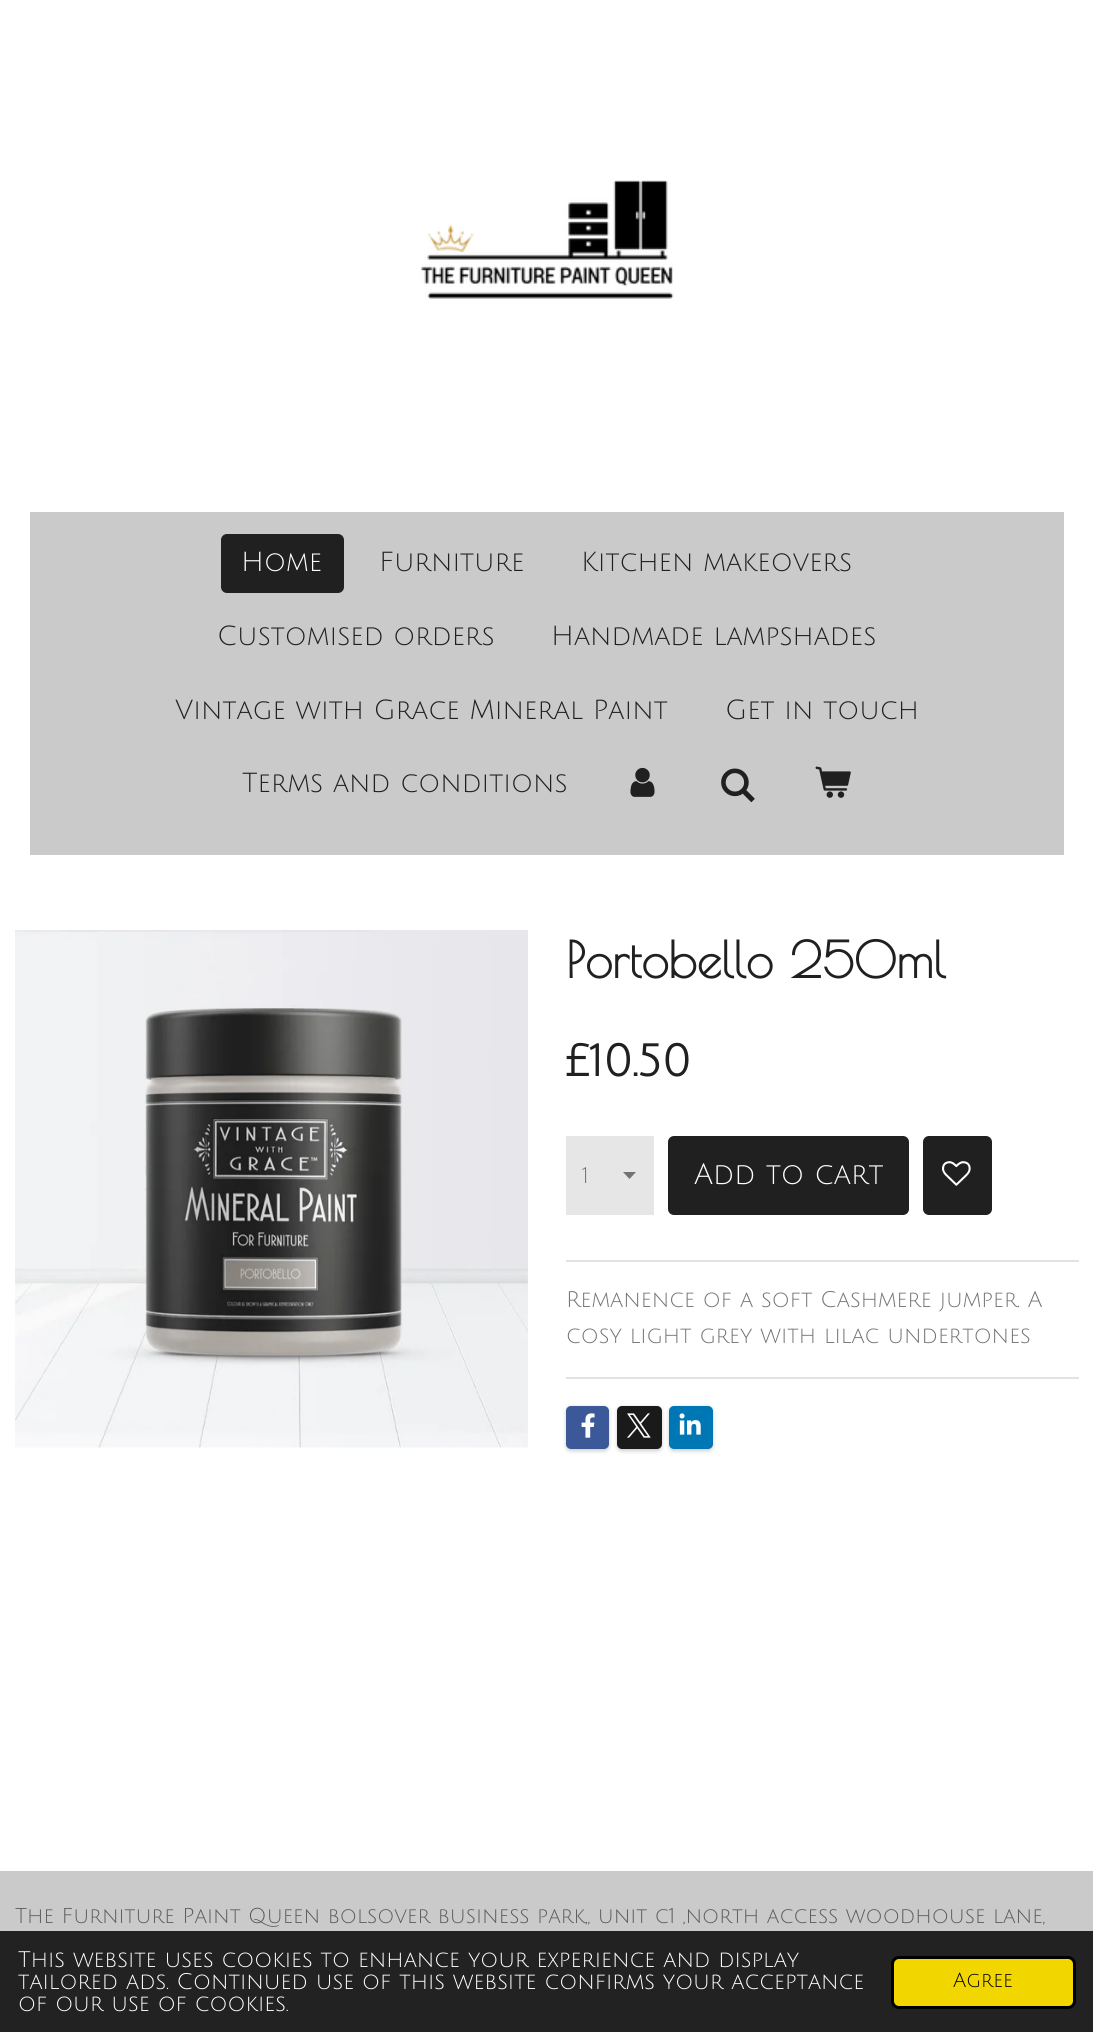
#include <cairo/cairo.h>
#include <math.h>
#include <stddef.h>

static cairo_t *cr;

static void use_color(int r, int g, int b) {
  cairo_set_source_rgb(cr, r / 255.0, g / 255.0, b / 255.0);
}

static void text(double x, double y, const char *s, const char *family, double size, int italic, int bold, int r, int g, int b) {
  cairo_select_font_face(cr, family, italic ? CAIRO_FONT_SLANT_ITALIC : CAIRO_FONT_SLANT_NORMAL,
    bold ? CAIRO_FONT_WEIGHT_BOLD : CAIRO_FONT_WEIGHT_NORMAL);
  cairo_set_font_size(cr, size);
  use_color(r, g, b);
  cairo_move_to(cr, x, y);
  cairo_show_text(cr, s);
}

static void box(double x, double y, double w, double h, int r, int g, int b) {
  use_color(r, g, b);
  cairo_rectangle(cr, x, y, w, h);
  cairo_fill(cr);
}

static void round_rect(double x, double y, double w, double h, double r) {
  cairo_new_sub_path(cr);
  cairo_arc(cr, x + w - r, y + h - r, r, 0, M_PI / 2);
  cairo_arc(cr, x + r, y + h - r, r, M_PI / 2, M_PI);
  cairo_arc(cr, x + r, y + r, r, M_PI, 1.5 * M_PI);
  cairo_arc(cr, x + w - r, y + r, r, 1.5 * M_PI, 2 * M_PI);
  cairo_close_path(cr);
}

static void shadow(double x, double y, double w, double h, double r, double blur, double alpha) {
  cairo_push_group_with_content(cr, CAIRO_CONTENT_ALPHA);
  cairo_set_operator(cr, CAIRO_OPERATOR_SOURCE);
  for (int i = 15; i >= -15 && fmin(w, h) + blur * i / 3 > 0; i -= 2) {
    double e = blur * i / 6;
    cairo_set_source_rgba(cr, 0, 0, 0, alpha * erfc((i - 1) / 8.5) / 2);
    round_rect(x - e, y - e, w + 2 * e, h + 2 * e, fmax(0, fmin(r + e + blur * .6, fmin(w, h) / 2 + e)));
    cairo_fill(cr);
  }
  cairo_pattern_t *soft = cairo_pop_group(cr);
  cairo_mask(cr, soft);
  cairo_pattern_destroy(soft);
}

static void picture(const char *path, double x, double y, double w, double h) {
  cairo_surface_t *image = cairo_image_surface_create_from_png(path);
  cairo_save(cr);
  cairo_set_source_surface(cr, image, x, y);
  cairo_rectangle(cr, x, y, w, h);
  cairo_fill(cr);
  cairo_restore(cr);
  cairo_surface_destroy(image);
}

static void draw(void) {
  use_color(255, 255, 255);
  cairo_paint(cr);
  picture("img_01.png", 421, 180, 253, 119);
  box(30, 512, 1034, 343, 202, 202, 202);
  use_color(32, 32, 32);
  round_rect(221, 534, 123, 59, 6);
  cairo_fill(cr);
  picture("img_02.png", 630, 767, 25, 30);
  picture("img_03.png", 721, 768, 34, 35);
  picture("img_04.png", 815, 766, 36, 32);
  picture("img_05.png", 15, 930, 513, 518);
  box(566, 1136, 88, 79, 230, 230, 230);
  cairo_save(cr);
  cairo_rectangle(cr, 623, 1172, 15, 7);
  cairo_clip(cr);
  use_color(115, 115, 115);
  cairo_new_path(cr);
  cairo_move_to(cr, 629.5, 1179);
  cairo_line_to(cr, 622.5, 1171.5);
  cairo_line_to(cr, 636.5, 1171.5);
  cairo_close_path(cr);
  cairo_fill(cr);
  cairo_restore(cr);
  use_color(32, 32, 32);
  round_rect(668, 1136, 241, 79, 6);
  cairo_fill(cr);
  round_rect(923, 1136, 69, 79, 6);
  cairo_fill(cr);
  picture("img_06.png", 942, 1161, 29, 25);
  box(566, 1260, 513, 2, 227, 227, 227);
  box(566, 1377, 513, 2, 227, 227, 227);
  use_color(0, 0, 0);
  shadow(566, 1407, 43, 44, 5, 2, 0.2);
  use_color(59, 89, 152);
  round_rect(566, 1406, 43, 43, 5);
  cairo_fill(cr);
  picture("img_07.png", 581, 1413, 14, 25);
  use_color(0, 0, 0);
  shadow(617, 1407, 45, 44, 5, 2, 0.2);
  use_color(26, 26, 26);
  round_rect(617, 1406, 45, 43, 5);
  cairo_fill(cr);
  picture("img_08.png", 627, 1413, 24, 25);
  use_color(0, 0, 0);
  shadow(669, 1407, 44, 44, 5, 2, 0.2);
  use_color(0, 119, 181);
  round_rect(669, 1406, 44, 43, 5);
  cairo_fill(cr);
  picture("img_09.png", 679, 1413, 22, 22);
  box(0, 1871, 1093, 60, 202, 202, 202);
  box(0, 1931, 1093, 101, 34, 34, 34);
  use_color(241, 214, 0);
  round_rect(892.5, 1957.5, 182, 50, 6.5);
  cairo_fill_preserve(cr);
  use_color(0, 0, 0);
  cairo_set_line_width(cr, 3);
  cairo_stroke(cr);
  text(241, 571, "Home", "Julius Sans One", 27, 0, 0, 255, 255, 255);
  text(379, 571, "Furniture", "Julius Sans One", 27, 0, 0, 32, 32, 32);
  text(581, 571, "Kitchen makeovers", "Julius Sans One", 27, 0, 0, 32, 32, 32);
  text(217, 645, "Customised orders", "Julius Sans One", 27, 0, 0, 32, 32, 32);
  text(551, 645, "Handmade lampshades", "Julius Sans One", 27, 0, 0, 32, 32, 32);
  text(175, 719, "Vintage with Grace Mineral Paint", "Julius Sans One", 27, 0, 0, 32, 32, 32);
  text(725, 719, "Get in touch", "Julius Sans One", 27, 0, 0, 32, 32, 32);
  text(242, 792, "Terms and conditions", "Julius Sans One", 27, 0, 0, 32, 32, 32);
  text(566, 978, "Portobello 250ml", "Poiret One", 49.5, 0, 1, 32, 32, 32);
  text(566, 1076, "£10.50", "Julius Sans One", 44, 0, 1, 32, 32, 32);
  text(582, 1183, "1", "Julius Sans One", 22.05, 0, 0, 115, 115, 115);
  text(694, 1184, "Add to cart", "Julius Sans One", 28.75, 0, 0, 255, 255, 255);
  text(566, 1307, "Remanence of a soft Cashmere jumper. A", "Julius Sans One", 22.05, 0, 0, 115, 115, 115);
  text(566, 1343, "cosy light grey with lilac undertones", "Julius Sans One", 22.05, 0, 0, 115, 115, 115);
  text(15, 1923, "The Furniture Paint Queen bolsover business park,, unit c1 ,north access woodhouse lane,", "Julius Sans One", 21, 0, 0, 91, 91, 91);
  text(18, 1967, "This website uses cookies to enhance your experience and display", "Julius Sans One", 22.05, 0, 0, 255, 255, 255);
  text(18, 1989, "tailored ads. Continued use of this website confirms your acceptance", "Julius Sans One", 22.05, 0, 0, 255, 255, 255);
  text(18, 2011, "of our use of cookies.", "Julius Sans One", 22.05, 0, 0, 255, 255, 255);
  text(953, 1987, "Agree", "Julius Sans One", 20, 0, 0, 0, 0, 0);
}

int main(void) {
  cairo_surface_t *surface = cairo_image_surface_create(CAIRO_FORMAT_RGB24, 1093, 2032);
  cr = cairo_create(surface);
  cairo_font_options_t *options = cairo_font_options_create();
  cairo_font_options_set_hint_metrics(options, CAIRO_HINT_METRICS_OFF);
  cairo_font_options_set_hint_style(options, CAIRO_HINT_STYLE_NONE);
  cairo_set_font_options(cr, options);
  cairo_set_miter_limit(cr, 4);
  draw();
  cairo_surface_write_to_png(surface, "out.png");
  cairo_font_options_destroy(options);
  cairo_destroy(cr);
  cairo_surface_destroy(surface);
  return 0;
}
